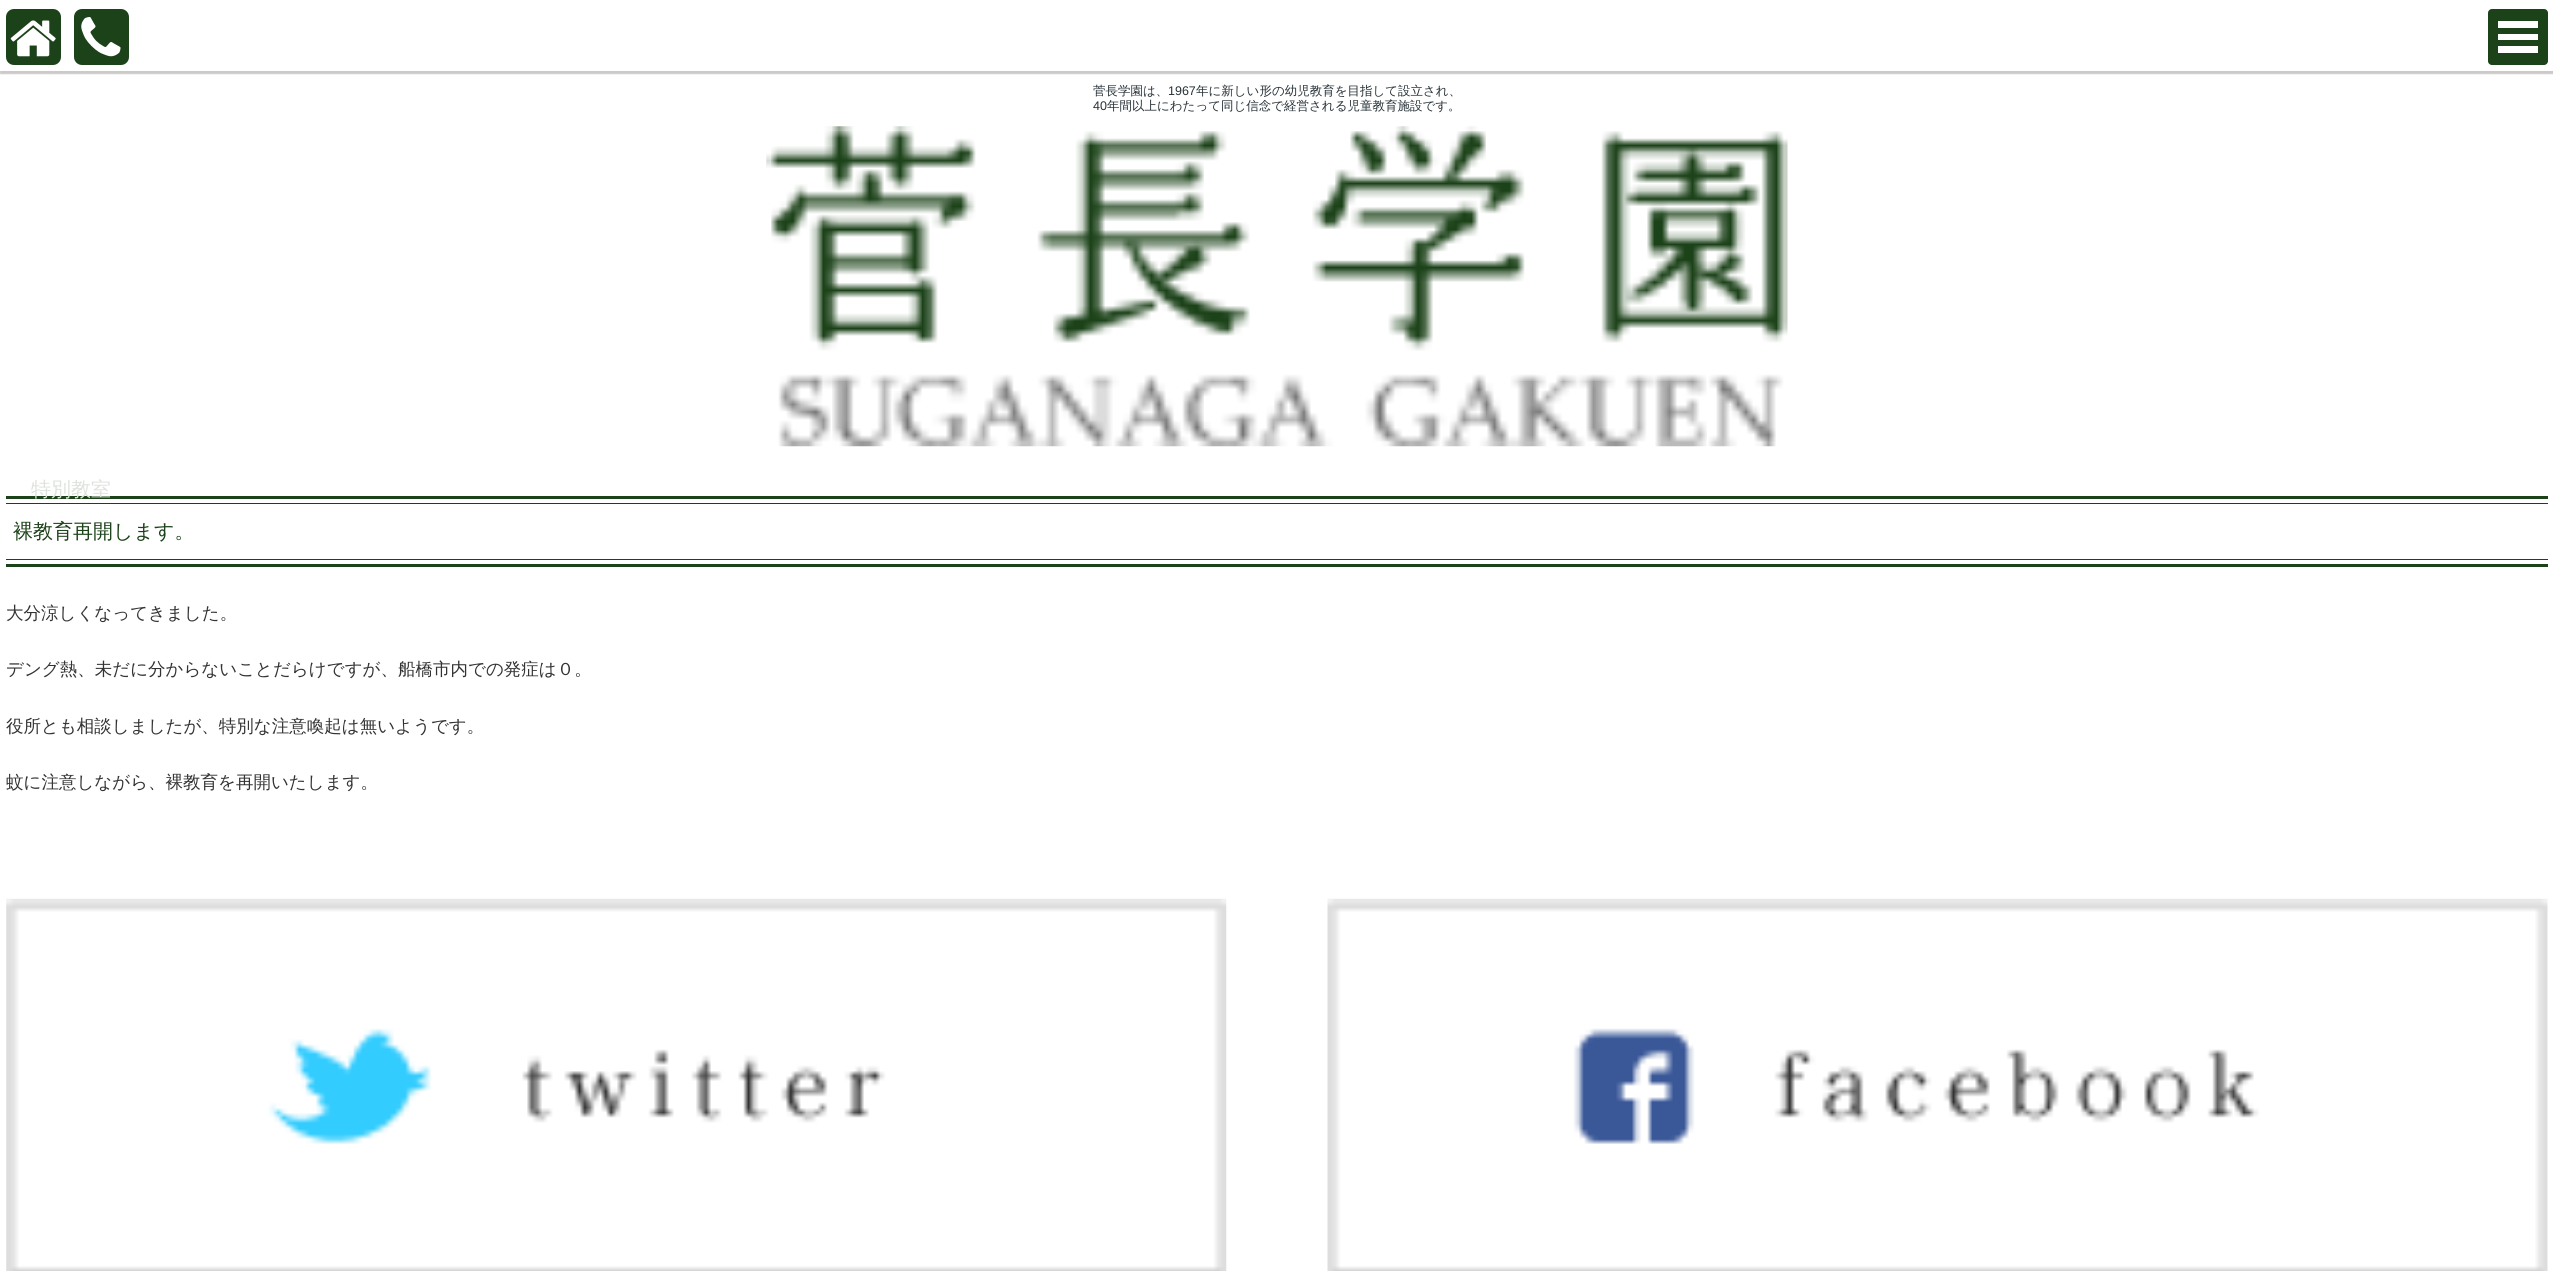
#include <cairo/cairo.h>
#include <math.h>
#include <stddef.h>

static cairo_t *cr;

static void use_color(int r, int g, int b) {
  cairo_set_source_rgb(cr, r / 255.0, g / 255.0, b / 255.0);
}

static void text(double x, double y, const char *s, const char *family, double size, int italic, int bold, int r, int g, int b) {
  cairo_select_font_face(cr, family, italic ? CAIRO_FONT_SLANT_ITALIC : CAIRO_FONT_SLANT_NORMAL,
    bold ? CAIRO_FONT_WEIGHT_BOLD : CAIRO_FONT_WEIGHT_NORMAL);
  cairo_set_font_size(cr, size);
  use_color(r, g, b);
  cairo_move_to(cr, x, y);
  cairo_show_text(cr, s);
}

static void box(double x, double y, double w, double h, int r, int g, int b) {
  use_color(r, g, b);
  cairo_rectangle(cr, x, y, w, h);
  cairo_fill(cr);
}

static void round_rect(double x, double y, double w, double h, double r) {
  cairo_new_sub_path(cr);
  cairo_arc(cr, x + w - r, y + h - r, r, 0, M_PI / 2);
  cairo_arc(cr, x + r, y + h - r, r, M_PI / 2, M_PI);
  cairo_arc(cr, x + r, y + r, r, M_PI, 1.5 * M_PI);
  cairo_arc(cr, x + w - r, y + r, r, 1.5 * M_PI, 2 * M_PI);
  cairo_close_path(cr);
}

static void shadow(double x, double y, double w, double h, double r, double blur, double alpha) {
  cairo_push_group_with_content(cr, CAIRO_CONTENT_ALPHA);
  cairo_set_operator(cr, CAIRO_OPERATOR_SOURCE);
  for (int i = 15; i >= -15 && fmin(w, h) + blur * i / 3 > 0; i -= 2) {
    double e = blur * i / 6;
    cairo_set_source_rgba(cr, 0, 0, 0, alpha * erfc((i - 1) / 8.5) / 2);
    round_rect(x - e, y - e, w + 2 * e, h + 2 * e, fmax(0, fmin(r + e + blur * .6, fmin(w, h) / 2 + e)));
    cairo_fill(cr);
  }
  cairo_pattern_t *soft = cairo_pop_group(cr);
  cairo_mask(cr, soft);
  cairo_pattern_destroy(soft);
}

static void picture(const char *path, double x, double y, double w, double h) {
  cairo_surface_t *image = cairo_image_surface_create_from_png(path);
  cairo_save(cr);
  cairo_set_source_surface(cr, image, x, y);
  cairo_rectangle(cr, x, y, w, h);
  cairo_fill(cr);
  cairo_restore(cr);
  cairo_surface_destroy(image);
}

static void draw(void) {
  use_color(255, 255, 255);
  cairo_paint(cr);
  picture("img_01.png", 766, 126, 1022, 321);
  cairo_save(cr);
  cairo_rectangle(cr, 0, 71, 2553, 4);
  cairo_clip(cr);
  use_color(204, 201, 201);
  shadow(0, 3, 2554, 71, 0, 0.5, 1);
  cairo_restore(cr);
  use_color(28, 66, 25);
  round_rect(6, 9, 55, 56, 8);
  cairo_fill(cr);
  picture("img_02.png", 10, 20, 46, 37);
  round_rect(74, 9, 55, 56, 8);
  cairo_fill(cr);
  picture("img_03.png", 81, 17, 40, 40);
  round_rect(2488, 9, 60, 56, 4);
  cairo_fill(cr);
  box(2498, 46, 40, 7, 255, 255, 255);
  box(2498, 34, 40, 6, 255, 255, 255);
  box(2498, 21, 40, 7, 255, 255, 255);
  box(6, 496, 2542, 3, 28, 66, 25);
  box(6, 503, 2542, 1, 28, 66, 25);
  box(6, 559, 2542, 1, 28, 66, 25);
  box(6, 564, 2542, 3, 28, 66, 25);
  picture("img_04.png", 6, 898, 1221, 373);
  picture("img_05.png", 1327, 898, 1221, 373);
  text(1093, 95, "菅長学園は、", "WenQuanYi Zen Hei Medium", 12.5, 0, 0, 38, 49, 55);
  text(1168, 95, "1967", "Liberation Sans", 12.5, 0, 0, 38, 49, 55);
  text(1196, 95, "年に新しい形の幼児教育を目指して設立され、", "WenQuanYi Zen Hei Medium", 12.5, 0, 0, 38, 49, 55);
  text(1093, 110, "40", "Liberation Sans", 12.5, 0, 0, 38, 49, 55);
  text(1107, 110, "年間以上にわたって同じ信念で経営される児童教育施設です。", "WenQuanYi Zen Hei Medium", 12.5, 0, 0, 38, 49, 55);
  text(31, 496, "特別教室", "WenQuanYi Zen Hei Medium", 20, 0, 0, 221, 227, 220);
  text(13, 538, "裸教育再開します。", "WenQuanYi Zen Hei Medium", 20, 0, 0, 28, 66, 25);
  text(6, 619, "大分涼しくなってきました。", "WenQuanYi Zen Hei Medium", 17.5, 0, 0, 51, 51, 51);
  text(6, 675, "デング熱、未だに分からないことだらけですが、船橋市内での発症は０。", "WenQuanYi Zen Hei Medium", 17.5, 0, 0, 51, 51, 51);
  text(6, 732, "役所とも相談しましたが、特別な注意喚起は無いようです。", "WenQuanYi Zen Hei Medium", 17.5, 0, 0, 51, 51, 51);
  text(6, 788, "蚊に注意しながら、裸教育を再開いたします。", "WenQuanYi Zen Hei Medium", 17.5, 0, 0, 51, 51, 51);
}

int main(void) {
  cairo_surface_t *surface = cairo_image_surface_create(CAIRO_FORMAT_RGB24, 2553, 1271);
  cr = cairo_create(surface);
  cairo_font_options_t *options = cairo_font_options_create();
  cairo_font_options_set_hint_metrics(options, CAIRO_HINT_METRICS_OFF);
  cairo_font_options_set_hint_style(options, CAIRO_HINT_STYLE_NONE);
  cairo_set_font_options(cr, options);
  cairo_set_miter_limit(cr, 4);
  draw();
  cairo_surface_write_to_png(surface, "out.png");
  cairo_font_options_destroy(options);
  cairo_destroy(cr);
  cairo_surface_destroy(surface);
  return 0;
}
